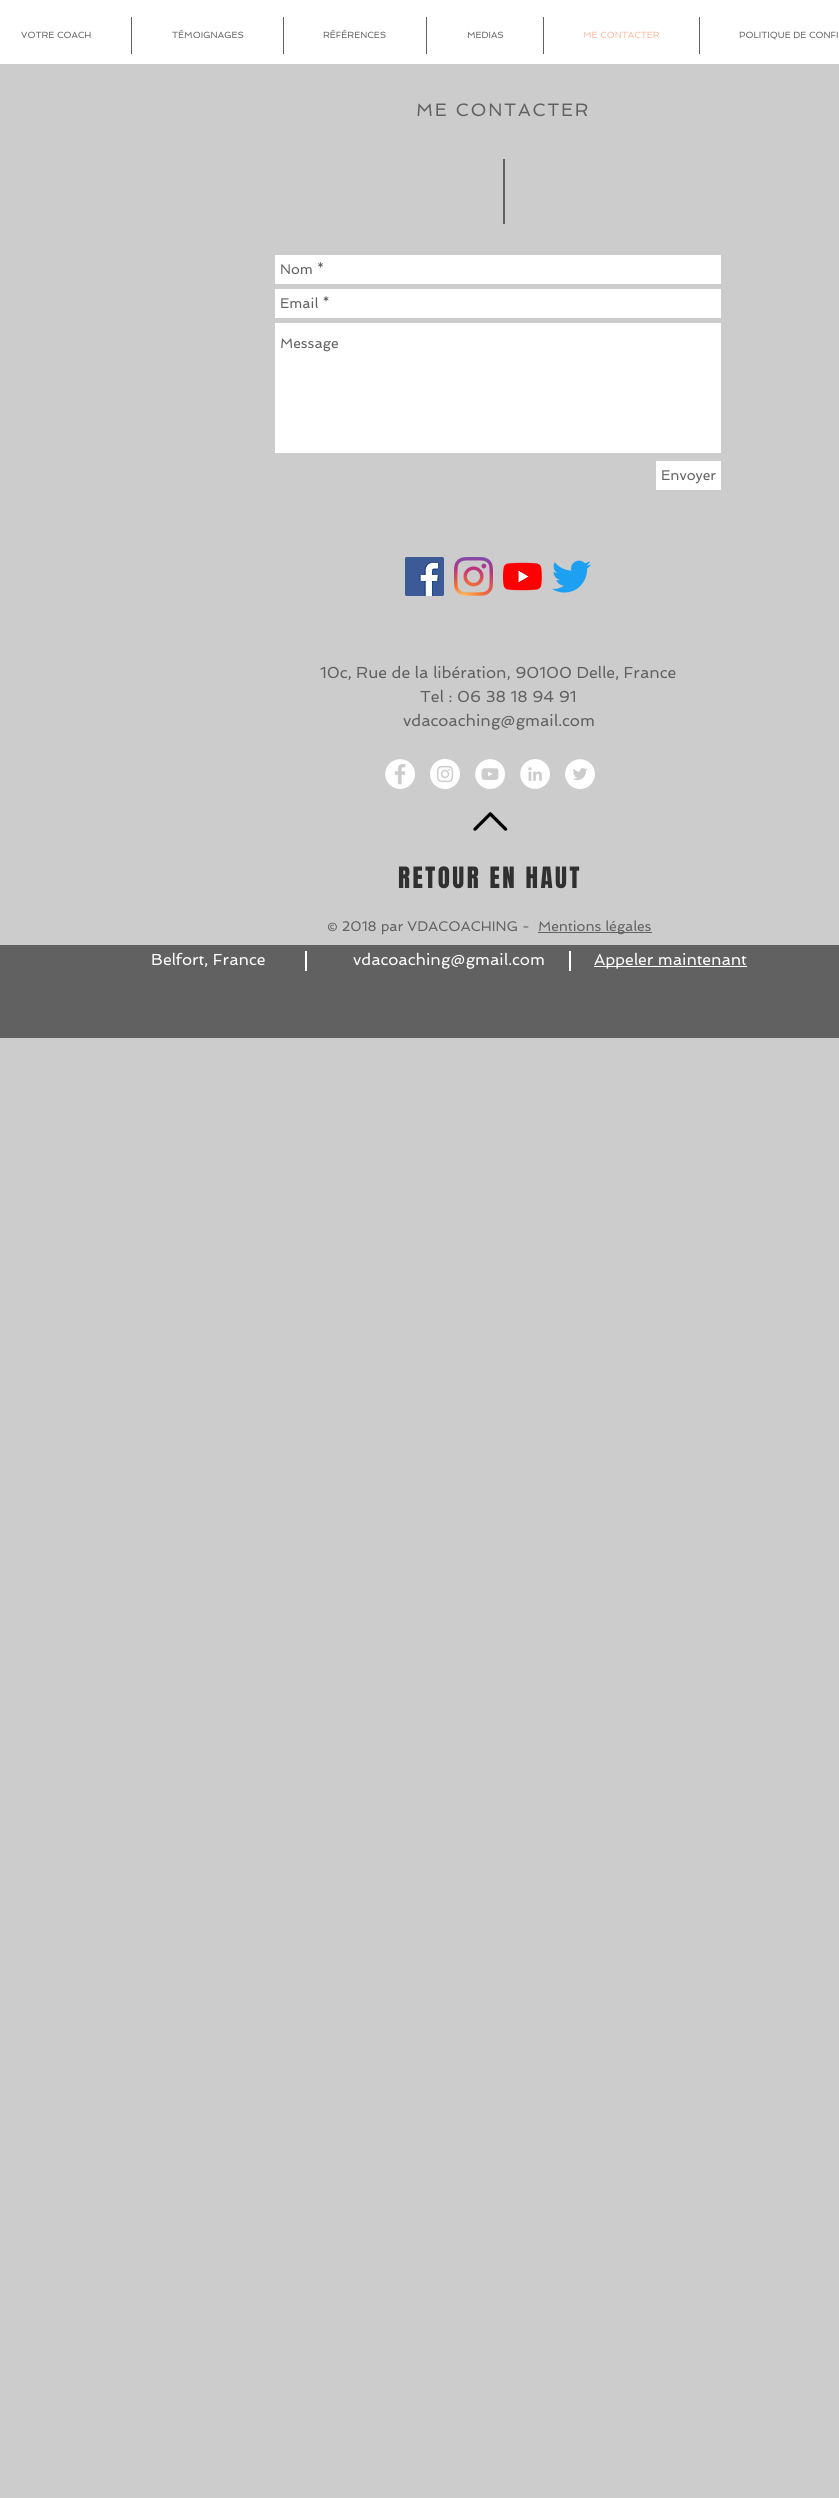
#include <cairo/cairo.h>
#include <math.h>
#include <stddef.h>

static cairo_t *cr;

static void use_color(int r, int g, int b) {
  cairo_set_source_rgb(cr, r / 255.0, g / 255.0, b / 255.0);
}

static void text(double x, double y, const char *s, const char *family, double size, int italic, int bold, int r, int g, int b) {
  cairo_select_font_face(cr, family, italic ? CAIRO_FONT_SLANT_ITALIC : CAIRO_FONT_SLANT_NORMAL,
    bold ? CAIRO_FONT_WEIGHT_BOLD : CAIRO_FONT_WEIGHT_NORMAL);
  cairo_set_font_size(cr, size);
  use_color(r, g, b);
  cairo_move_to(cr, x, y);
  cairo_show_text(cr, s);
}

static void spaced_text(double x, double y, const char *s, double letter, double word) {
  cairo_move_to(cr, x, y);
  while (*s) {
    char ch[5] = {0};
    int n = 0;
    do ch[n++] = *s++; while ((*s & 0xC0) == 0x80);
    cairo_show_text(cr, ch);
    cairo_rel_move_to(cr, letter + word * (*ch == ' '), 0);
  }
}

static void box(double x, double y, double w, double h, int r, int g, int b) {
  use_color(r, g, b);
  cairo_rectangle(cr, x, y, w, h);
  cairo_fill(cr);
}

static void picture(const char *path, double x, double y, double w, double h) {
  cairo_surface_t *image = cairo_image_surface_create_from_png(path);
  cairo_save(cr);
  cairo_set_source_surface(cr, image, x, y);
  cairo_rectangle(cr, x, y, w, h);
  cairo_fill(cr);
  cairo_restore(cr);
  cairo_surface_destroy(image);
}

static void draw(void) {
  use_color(204, 204, 204);
  cairo_paint(cr);
  box(0, 0, 839, 64, 255, 255, 255);
  box(131, 17, 1, 37, 97, 97, 97);
  box(283, 17, 1, 37, 97, 97, 97);
  box(426, 17, 1, 37, 97, 97, 97);
  box(543, 17, 1, 37, 97, 97, 97);
  box(699, 17, 1, 37, 97, 97, 97);
  box(503, 159, 2, 65, 97, 97, 97);
  box(275, 255, 446, 29, 255, 255, 255);
  box(275, 289, 446, 29, 255, 255, 255);
  box(275, 323, 446, 130, 255, 255, 255);
  box(656, 461, 65, 29, 255, 255, 255);
  picture("img_01.png", 405, 557, 39, 39);
  picture("img_02.png", 454, 557, 39, 39);
  picture("img_03.png", 503, 562, 39, 29);
  picture("img_04.png", 552, 560, 39, 33);
  picture("img_05.png", 385, 759, 30, 30);
  picture("img_06.png", 430, 759, 30, 30);
  picture("img_07.png", 475, 759, 30, 30);
  picture("img_08.png", 520, 759, 30, 30);
  picture("img_09.png", 565, 759, 30, 30);
  picture("img_10.png", 473, 812, 35, 19);
  box(538, 932, 114, 1, 97, 97, 97);
  box(0, 945, 839, 93, 97, 97, 97);
  box(305, 951, 2, 20, 255, 255, 255);
  box(569, 951, 2, 20, 255, 255, 255);
  box(594, 966, 153, 1, 255, 255, 255);
  text(21, 38, "VOTRE COACH", "Spinnaker", 9, 0, 0, 97, 97, 97);
  text(172, 38, "TÉMOIGNAGES", "Spinnaker", 9, 0, 0, 97, 97, 97);
  text(323, 38, "RÉFÉRENCES", "Spinnaker", 9, 0, 0, 97, 97, 97);
  text(467, 38, "MEDIAS", "Spinnaker", 9, 0, 0, 97, 97, 97);
  text(583, 38, "ME CONTACTER", "Spinnaker", 9, 0, 0, 252, 185, 162);
  text(739, 38, "POLITIQUE DE CONFI", "Spinnaker", 9, 0, 0, 97, 97, 97);
  cairo_set_font_size(cr, 18);
  spaced_text(416, 116, "ME CONTACTER", 1.75, 0);
  text(280, 274, "Nom *", "Spinnaker", 14, 0, 0, 97, 97, 97);
  text(280, 308, "Email *", "Spinnaker", 14, 0, 0, 97, 97, 97);
  text(280, 348, "Message", "Spinnaker", 14, 0, 0, 97, 97, 97);
  text(661, 480, "Envoyer", "Spinnaker", 14, 0, 0, 97, 97, 97);
  text(320, 678, "10c, Rue de la libération, 90100 Delle, France", "Spinnaker", 16, 0, 0, 97, 97, 97);
  text(420, 702, "Tel : 06 38 18 94 91", "Spinnaker", 16, 0, 0, 97, 97, 97);
  text(403, 726, "vdacoaching@gmail.com", "Spinnaker", 16, 0, 0, 97, 97, 97);
  cairo_select_font_face(cr, "Anton", CAIRO_FONT_SLANT_NORMAL, CAIRO_FONT_WEIGHT_NORMAL);
  cairo_set_font_size(cr, 25);
  use_color(48, 48, 48);
  spaced_text(398, 888, "RETOUR EN HAUT", 2.5, 0);
  text(327, 931, "© 2018 par VDACOACHING -", "Spinnaker", 14, 0, 0, 97, 97, 97);
  text(538, 931, "Mentions légales", "Spinnaker", 14, 0, 0, 97, 97, 97);
  text(151, 965, "Belfort, France", "Spinnaker", 16, 0, 0, 255, 255, 255);
  text(353, 965, "vdacoaching@gmail.com", "Spinnaker", 16, 0, 0, 255, 255, 255);
  text(594, 965, "Appeler maintenant", "Spinnaker", 16, 0, 0, 255, 255, 255);
}

int main(void) {
  cairo_surface_t *surface = cairo_image_surface_create(CAIRO_FORMAT_RGB24, 839, 2498);
  cr = cairo_create(surface);
  cairo_font_options_t *options = cairo_font_options_create();
  cairo_font_options_set_hint_metrics(options, CAIRO_HINT_METRICS_OFF);
  cairo_font_options_set_hint_style(options, CAIRO_HINT_STYLE_NONE);
  cairo_set_font_options(cr, options);
  cairo_set_miter_limit(cr, 4);
  draw();
  cairo_surface_write_to_png(surface, "out.png");
  cairo_font_options_destroy(options);
  cairo_destroy(cr);
  cairo_surface_destroy(surface);
  return 0;
}
